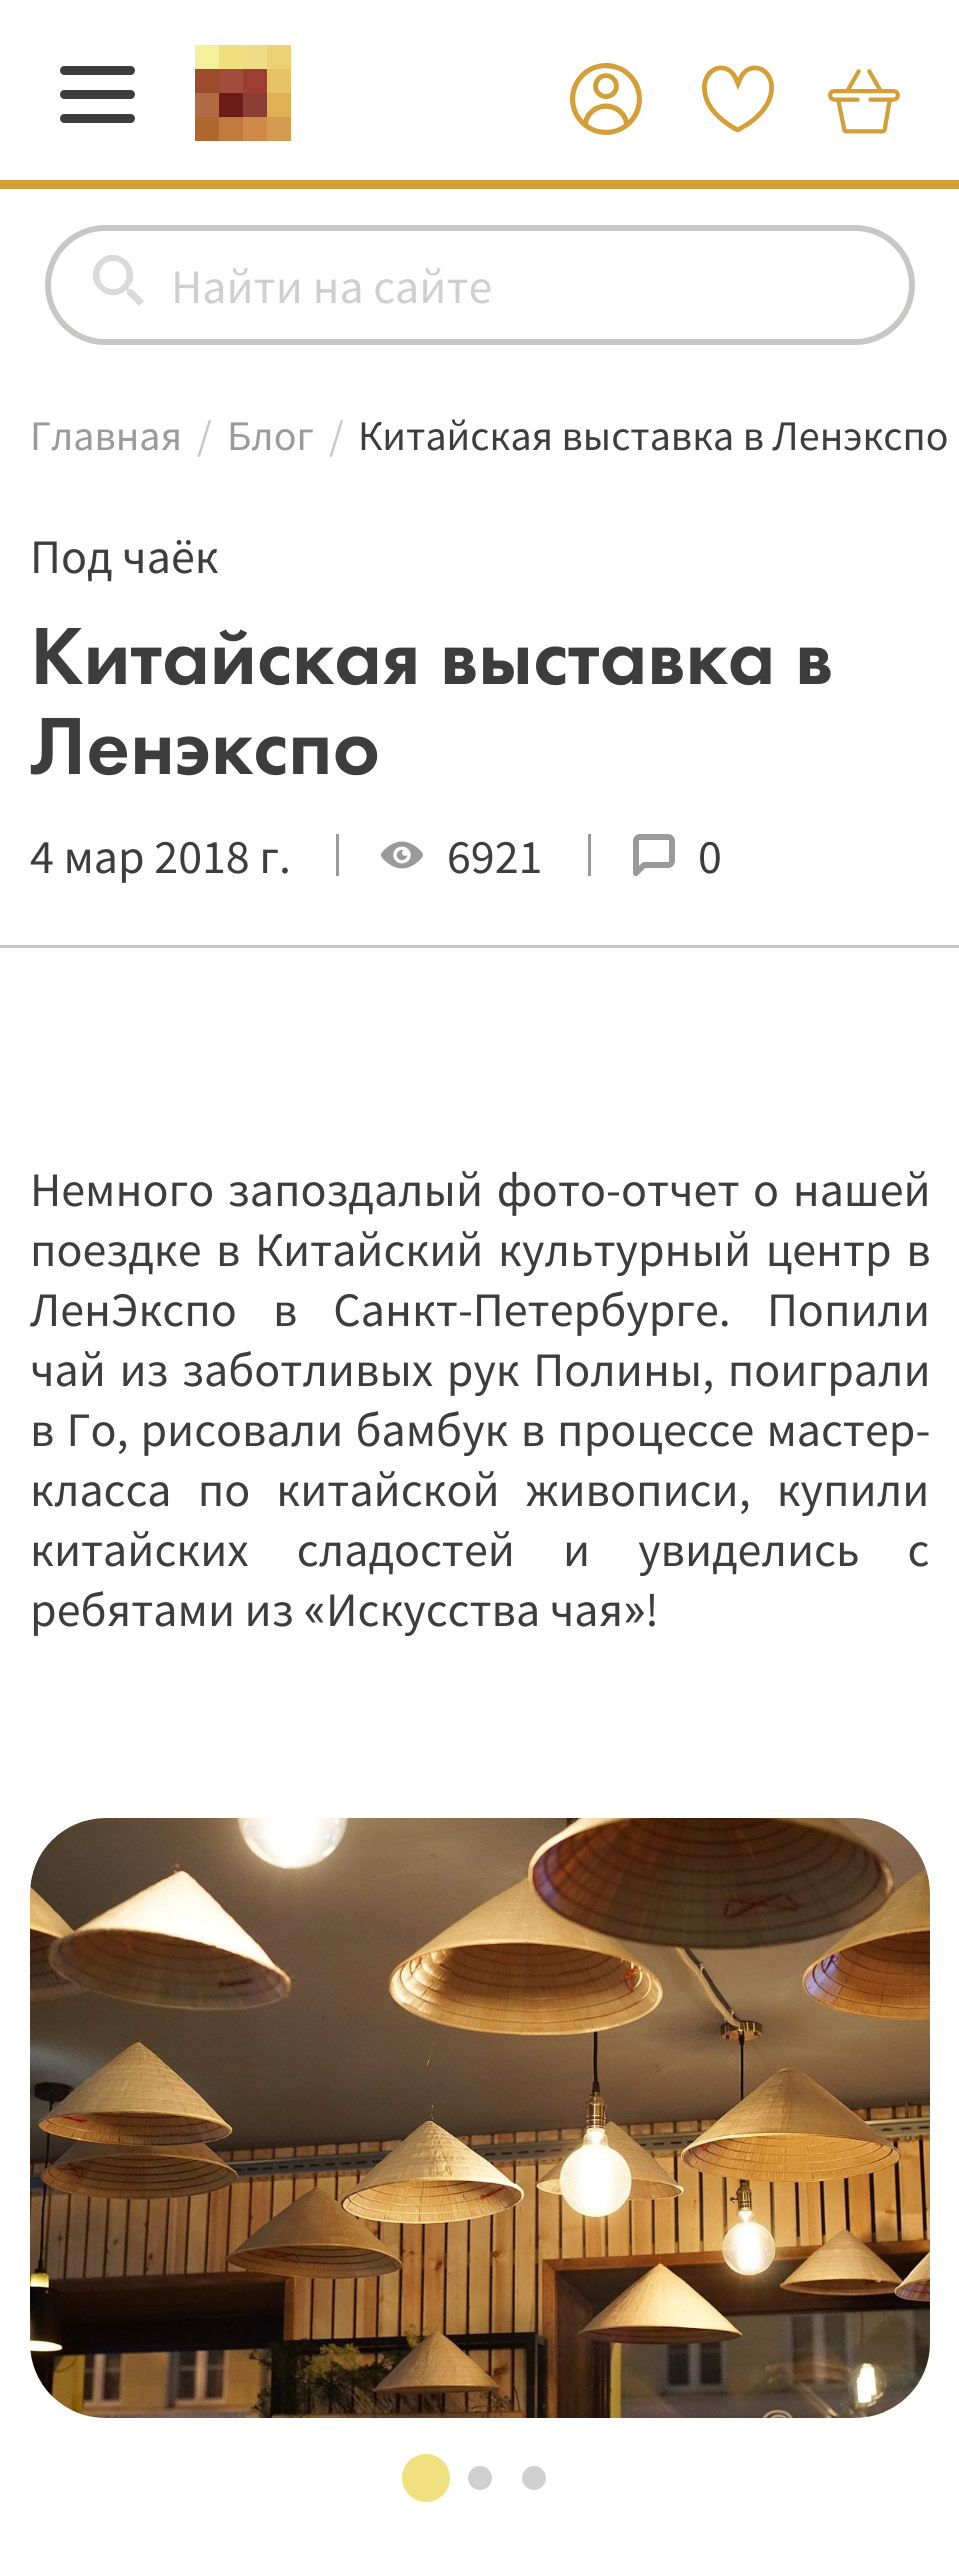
#include <cairo/cairo.h>
#include <math.h>
#include <stddef.h>

static cairo_t *cr;

static void use_color(int r, int g, int b) {
  cairo_set_source_rgb(cr, r / 255.0, g / 255.0, b / 255.0);
}

static void text(double x, double y, const char *s, const char *family, double size, int italic, int bold, int r, int g, int b) {
  cairo_select_font_face(cr, family, italic ? CAIRO_FONT_SLANT_ITALIC : CAIRO_FONT_SLANT_NORMAL,
    bold ? CAIRO_FONT_WEIGHT_BOLD : CAIRO_FONT_WEIGHT_NORMAL);
  cairo_set_font_size(cr, size);
  use_color(r, g, b);
  cairo_move_to(cr, x, y);
  cairo_show_text(cr, s);
}

static void spaced_text(double x, double y, const char *s, double letter, double word) {
  cairo_move_to(cr, x, y);
  while (*s) {
    char ch[5] = {0};
    int n = 0;
    do ch[n++] = *s++; while ((*s & 0xC0) == 0x80);
    cairo_show_text(cr, ch);
    cairo_rel_move_to(cr, letter + word * (*ch == ' '), 0);
  }
}

static void box(double x, double y, double w, double h, int r, int g, int b) {
  use_color(r, g, b);
  cairo_rectangle(cr, x, y, w, h);
  cairo_fill(cr);
}

static void round_rect(double x, double y, double w, double h, double r) {
  cairo_new_sub_path(cr);
  cairo_arc(cr, x + w - r, y + h - r, r, 0, M_PI / 2);
  cairo_arc(cr, x + r, y + h - r, r, M_PI / 2, M_PI);
  cairo_arc(cr, x + r, y + r, r, M_PI, 1.5 * M_PI);
  cairo_arc(cr, x + w - r, y + r, r, 1.5 * M_PI, 2 * M_PI);
  cairo_close_path(cr);
}

static void picture(const char *path, double x, double y, double w, double h) {
  cairo_surface_t *image = cairo_image_surface_create_from_png(path);
  cairo_save(cr);
  cairo_set_source_surface(cr, image, x, y);
  cairo_rectangle(cr, x, y, w, h);
  cairo_fill(cr);
  cairo_restore(cr);
  cairo_surface_destroy(image);
}

static void draw(void) {
  use_color(255, 255, 255);
  cairo_paint(cr);
  box(0, 180, 959, 9, 211, 159, 54);
  picture("img_01.png", 60, 66, 75, 57);
  picture("img_02.png", 195, 45, 96, 96);
  picture("img_03.png", 570, 63, 72, 72);
  picture("img_04.png", 702, 65, 72, 68);
  picture("img_05.png", 828, 69, 72, 65);
  round_rect(48, 228, 864, 114, 57);
  use_color(200, 199, 198);
  cairo_set_line_width(cr, 6);
  cairo_stroke(cr);
  cairo_save(cr);
  cairo_rectangle(cr, 93, 255, 54, 54);
  cairo_clip(cr);
  use_color(218, 218, 218);
  cairo_set_fill_rule(cr, CAIRO_FILL_RULE_EVEN_ODD);
  cairo_new_path(cr);
  cairo_move_to(cr, 132, 289);
  cairo_line_to(cr, 144, 301);
  cairo_line_to(cr, 139, 306);
  cairo_line_to(cr, 127, 294);
  cairo_line_to(cr, 127, 291);
  cairo_line_to(cr, 126, 290);
  cairo_curve_to(cr, 108, 307, 80, 279, 99, 261);
  cairo_curve_to(cr, 117, 242, 145, 270, 128, 288);
  cairo_line_to(cr, 129, 289);
  cairo_close_path(cr);
  cairo_move_to(cr, 113, 289);
  cairo_curve_to(cr, 131, 289, 131, 261, 113, 261);
  cairo_curve_to(cr, 95, 261, 95, 289, 113, 289);
  cairo_close_path(cr);
  cairo_fill(cr);
  cairo_restore(cr);
  box(0, 945, 959, 3, 200, 199, 198);
  picture("img_06.png", 381, 841, 42, 28);
  box(336, 834, 3, 42, 154, 154, 154);
  picture("img_07.png", 633, 834, 42, 42);
  box(588, 834, 3, 42, 154, 154, 154);
  picture("img_08.png", 30, 1818, 900, 600);
  use_color(240, 224, 127);
  cairo_arc(cr, 426, 2478, 24, 0, 2 * M_PI);
  cairo_fill(cr);
  use_color(207, 207, 207);
  cairo_arc(cr, 480, 2478, 12, 0, 2 * M_PI);
  cairo_fill(cr);
  cairo_arc(cr, 534, 2478, 12, 0, 2 * M_PI);
  cairo_fill(cr);
  text(171, 303, "Найти на сайте", "Source Sans Pro", 48, 0, 0, 207, 207, 207);
  text(30, 450, "Главная", "Source Sans Pro", 42, 0, 0, 154, 154, 154);
  text(197, 450, "/", "Source Sans Pro", 42, 0, 0, 200, 199, 198);
  text(227, 450, "Блог", "Source Sans Pro", 42, 0, 0, 154, 154, 154);
  text(329, 450, "/", "Source Sans Pro", 42, 0, 0, 200, 199, 198);
  text(358, 450, "Китайская выставка в Ленэкспо", "Source Sans Pro", 42, 0, 0, 61, 61, 61);
  text(30, 573, "Под чаёк", "Source Sans Pro", 48, 0, 0, 61, 61, 61);
  text(30, 684, "Китайская выставка в", "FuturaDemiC", 84, 0, 0, 61, 61, 61);
  text(30, 774, "Ленэкспо", "FuturaDemiC", 84, 0, 0, 61, 61, 61);
  text(30, 873, "4 мар 2018 г.", "Source Sans Pro", 48, 0, 0, 61, 61, 61);
  text(447, 873, "6921", "Source Sans Pro", 48, 0, 0, 61, 61, 61);
  text(698, 873, "0", "Source Sans Pro", 48, 0, 0, 61, 61, 61);
  spaced_text(30, 1206, "Немного запоздалый фото-отчет о нашей", 0, 4);
  spaced_text(30, 1266, "поездке в Китайский культурный центр в", 0, 5);
  spaced_text(30, 1326, "ЛенЭкспо в Санкт-Петербурге. Попили", 0, 26.5);
  spaced_text(30, 1386, "чай из заботливых рук Полины, поиграли", 0, 4);
  spaced_text(30, 1446, "в Го, рисовали бамбук в процессе мастер-", 0, 2.5);
  spaced_text(30, 1506, "класса по китайской живописи, купили", 0, 16.5);
  spaced_text(30, 1566, "китайских сладостей и увиделись с", 0, 38.5);
  text(30, 1626, "ребятами из", "Source Sans Pro", 48, 0, 0, 61, 61, 61);
  text(303, 1626, "«", "Roboto", 48, 0, 0, 61, 61, 61);
  text(326, 1626, "Искусства чая", "Source Sans Pro", 48, 0, 0, 61, 61, 61);
  text(623, 1626, "»", "Roboto", 48, 0, 0, 61, 61, 61);
  text(645, 1626, "!", "Source Sans Pro", 48, 0, 0, 61, 61, 61);
}

int main(void) {
  cairo_surface_t *surface = cairo_image_surface_create(CAIRO_FORMAT_RGB24, 959, 2552);
  cr = cairo_create(surface);
  cairo_font_options_t *options = cairo_font_options_create();
  cairo_font_options_set_hint_metrics(options, CAIRO_HINT_METRICS_OFF);
  cairo_font_options_set_hint_style(options, CAIRO_HINT_STYLE_NONE);
  cairo_set_font_options(cr, options);
  cairo_set_miter_limit(cr, 4);
  draw();
  cairo_surface_write_to_png(surface, "out.png");
  cairo_font_options_destroy(options);
  cairo_destroy(cr);
  cairo_surface_destroy(surface);
  return 0;
}
